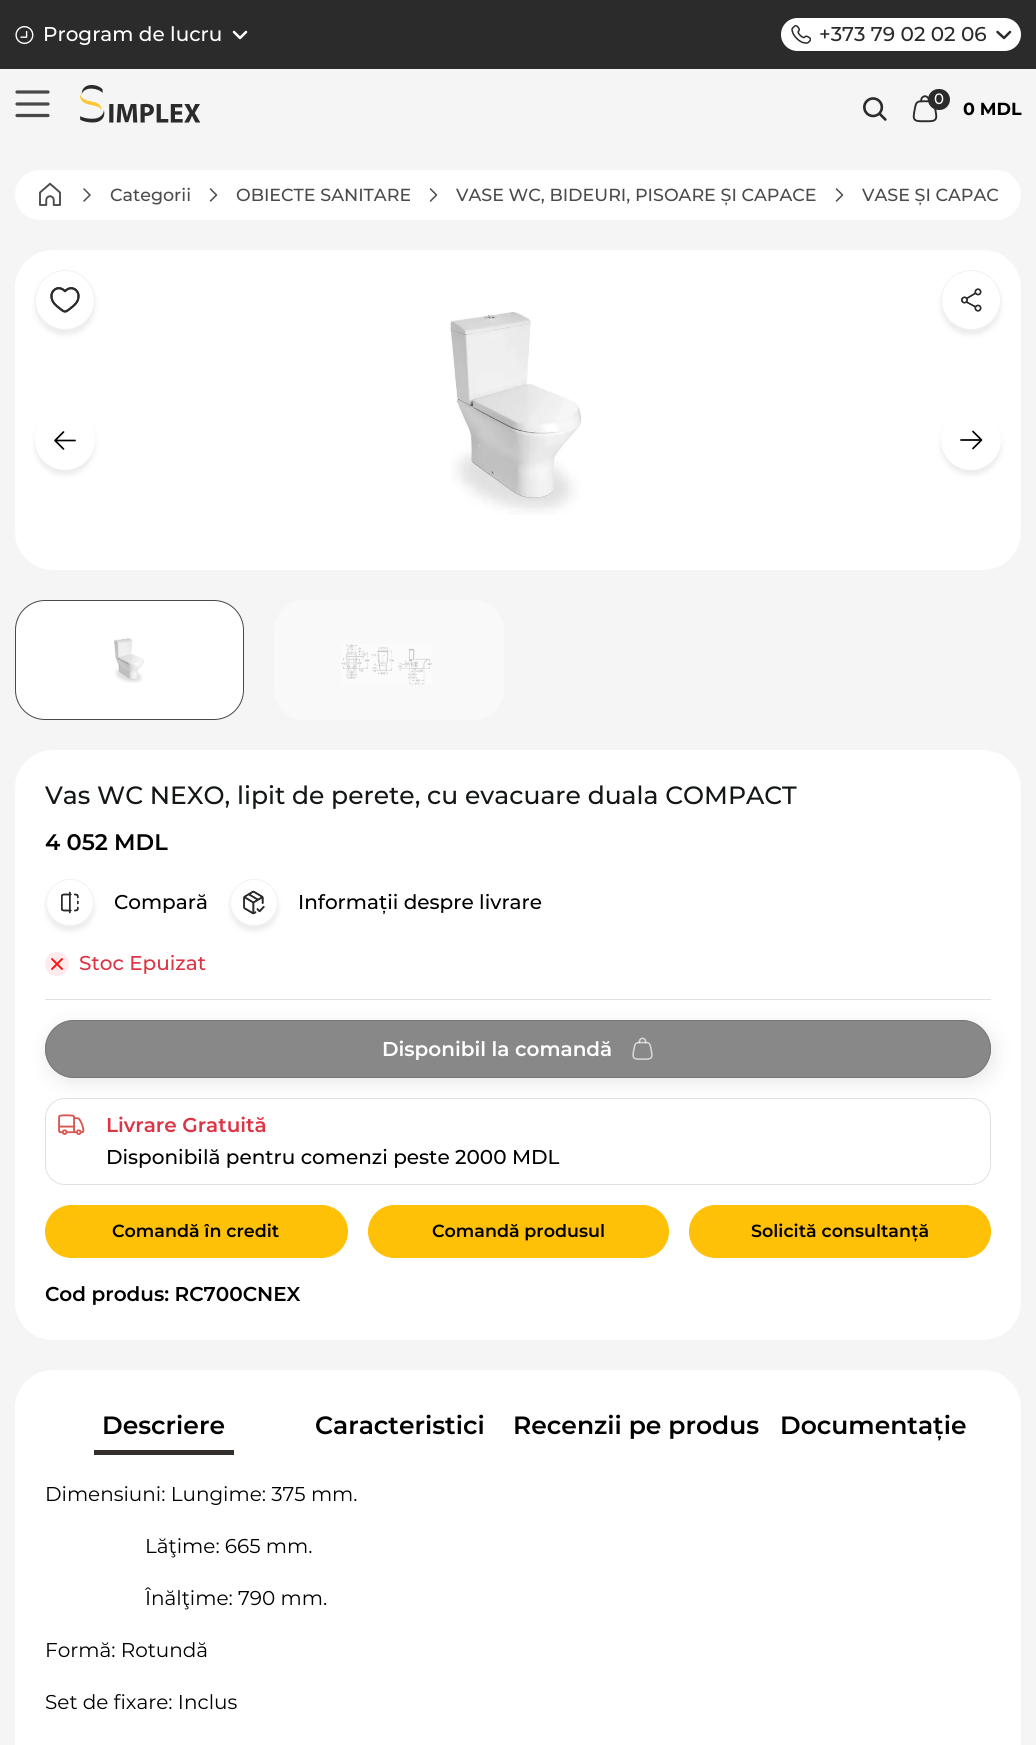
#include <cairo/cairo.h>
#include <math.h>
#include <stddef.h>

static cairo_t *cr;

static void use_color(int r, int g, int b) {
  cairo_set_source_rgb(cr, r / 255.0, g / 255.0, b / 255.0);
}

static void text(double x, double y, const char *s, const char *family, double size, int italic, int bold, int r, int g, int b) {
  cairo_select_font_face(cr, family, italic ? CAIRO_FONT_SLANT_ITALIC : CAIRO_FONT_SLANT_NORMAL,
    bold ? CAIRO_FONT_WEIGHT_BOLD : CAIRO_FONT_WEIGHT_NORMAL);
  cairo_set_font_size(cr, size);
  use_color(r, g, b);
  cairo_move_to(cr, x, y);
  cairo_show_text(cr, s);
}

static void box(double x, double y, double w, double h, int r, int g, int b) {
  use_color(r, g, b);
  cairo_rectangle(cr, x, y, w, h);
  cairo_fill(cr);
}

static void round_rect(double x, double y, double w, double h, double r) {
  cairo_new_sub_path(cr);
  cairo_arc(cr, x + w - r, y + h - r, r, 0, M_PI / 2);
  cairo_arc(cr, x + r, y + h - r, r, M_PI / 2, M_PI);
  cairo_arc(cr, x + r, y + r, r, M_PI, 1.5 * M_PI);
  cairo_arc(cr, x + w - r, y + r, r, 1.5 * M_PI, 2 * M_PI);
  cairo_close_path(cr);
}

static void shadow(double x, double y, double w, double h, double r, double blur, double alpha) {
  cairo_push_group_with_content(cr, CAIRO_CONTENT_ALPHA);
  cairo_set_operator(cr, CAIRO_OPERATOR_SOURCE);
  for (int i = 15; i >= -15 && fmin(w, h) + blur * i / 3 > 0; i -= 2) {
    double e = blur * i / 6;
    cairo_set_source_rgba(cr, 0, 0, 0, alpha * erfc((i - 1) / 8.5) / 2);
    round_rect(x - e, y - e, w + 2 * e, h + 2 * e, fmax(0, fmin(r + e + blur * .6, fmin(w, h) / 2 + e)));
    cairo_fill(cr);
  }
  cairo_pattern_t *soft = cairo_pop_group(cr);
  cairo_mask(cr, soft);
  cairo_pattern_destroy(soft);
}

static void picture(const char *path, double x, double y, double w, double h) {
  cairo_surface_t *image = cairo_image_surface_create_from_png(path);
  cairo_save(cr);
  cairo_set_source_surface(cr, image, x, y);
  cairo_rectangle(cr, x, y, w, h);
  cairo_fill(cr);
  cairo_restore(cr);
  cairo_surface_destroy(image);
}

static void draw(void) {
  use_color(245, 245, 245);
  cairo_paint(cr);
  box(0, 0, 1036, 69, 43, 43, 43);
  picture("img_01.png", 15, 26, 19, 18);
  cairo_new_path(cr);
  cairo_move_to(cr, 234, 32);
  cairo_line_to(cr, 240, 38);
  cairo_line_to(cr, 246, 32);
  use_color(255, 255, 255);
  cairo_set_line_width(cr, 2.5);
  cairo_set_line_cap(cr, CAIRO_LINE_CAP_ROUND);
  cairo_set_line_join(cr, CAIRO_LINE_JOIN_ROUND);
  cairo_stroke(cr);
  round_rect(781, 18, 240, 33, 16.5);
  cairo_fill(cr);
  picture("img_02.png", 791, 25, 20, 19);
  cairo_new_path(cr);
  cairo_move_to(cr, 997.5, 32);
  cairo_line_to(cr, 1004, 38);
  cairo_line_to(cr, 1010, 32);
  use_color(43, 43, 43);
  cairo_stroke(cr);
  cairo_new_path(cr);
  cairo_move_to(cr, 17, 92);
  cairo_line_to(cr, 48, 92);
  cairo_move_to(cr, 17, 104);
  cairo_line_to(cr, 48, 104);
  cairo_move_to(cr, 17, 115.5);
  cairo_line_to(cr, 48, 115.5);
  use_color(72, 72, 72);
  cairo_set_line_width(cr, 3.2);
  cairo_stroke(cr);
  picture("img_03.png", 80, 85, 120, 38);
  picture("img_04.png", 863, 97, 24, 24);
  picture("img_05.png", 912, 95, 26, 28);
  use_color(43, 43, 43);
  round_rect(928, 89, 22, 21, 10.5);
  cairo_fill(cr);
  use_color(255, 255, 255);
  round_rect(15, 170, 1006, 50, 25);
  cairo_fill(cr);
  picture("img_06.png", 39, 182, 22, 24);
  cairo_new_path(cr);
  cairo_move_to(cr, 84, 189);
  cairo_line_to(cr, 90, 195);
  cairo_line_to(cr, 84, 201);
  use_color(75, 75, 75);
  cairo_set_line_width(cr, 1.5);
  cairo_stroke(cr);
  cairo_new_path(cr);
  cairo_move_to(cr, 210.5, 189);
  cairo_line_to(cr, 216.5, 195);
  cairo_line_to(cr, 210.5, 201);
  cairo_stroke(cr);
  cairo_new_path(cr);
  cairo_move_to(cr, 430.5, 189);
  cairo_line_to(cr, 436.5, 195);
  cairo_line_to(cr, 430.5, 201);
  cairo_stroke(cr);
  cairo_new_path(cr);
  cairo_move_to(cr, 836.5, 189);
  cairo_line_to(cr, 842.5, 195);
  cairo_line_to(cr, 836.5, 201);
  cairo_stroke(cr);
  use_color(255, 255, 255);
  round_rect(15, 250, 1006, 320, 38);
  cairo_fill(cr);
  picture("img_07.png", 449, 312, 133, 203);
  use_color(183, 177, 177);
  shadow(35, 275, 60, 60, 30, 2.5, 0.25);
  use_color(255, 255, 255);
  cairo_arc(cr, 65, 300, 29.5, 0, 2 * M_PI);
  cairo_fill_preserve(cr);
  use_color(240, 241, 245);
  cairo_set_line_width(cr, 1);
  cairo_set_line_cap(cr, CAIRO_LINE_CAP_BUTT);
  cairo_set_line_join(cr, CAIRO_LINE_JOIN_MITER);
  cairo_stroke(cr);
  picture("img_08.png", 50, 287, 30, 26);
  picture("img_09.png", 50, 287, 30, 26);
  use_color(183, 177, 177);
  shadow(941, 275, 60, 60, 30, 2.5, 0.25);
  use_color(255, 255, 255);
  cairo_arc(cr, 971, 300, 29.5, 0, 2 * M_PI);
  cairo_fill_preserve(cr);
  use_color(240, 241, 245);
  cairo_stroke(cr);
  picture("img_10.png", 961, 288, 21, 24);
  picture("img_11.png", 961, 288, 21, 24);
  use_color(178, 176, 176);
  shadow(35, 415, 60, 60, 30, 2.5, 0.25);
  use_color(255, 255, 255);
  cairo_arc(cr, 65, 440, 30, 0, 2 * M_PI);
  cairo_fill(cr);
  cairo_new_path(cr);
  cairo_move_to(cr, 75, 440.5);
  cairo_line_to(cr, 55, 440.5);
  cairo_move_to(cr, 55, 440.5);
  cairo_line_to(cr, 63.5, 432);
  cairo_move_to(cr, 55, 440.5);
  cairo_line_to(cr, 63.5, 449);
  use_color(0, 0, 0);
  cairo_set_line_width(cr, 1.7);
  cairo_set_line_cap(cr, CAIRO_LINE_CAP_ROUND);
  cairo_set_line_join(cr, CAIRO_LINE_JOIN_ROUND);
  cairo_stroke(cr);
  use_color(178, 176, 176);
  shadow(941, 415, 60, 60, 30, 2.5, 0.25);
  use_color(255, 255, 255);
  cairo_arc(cr, 971, 440, 30, 0, 2 * M_PI);
  cairo_fill(cr);
  cairo_new_path(cr);
  cairo_move_to(cr, 961, 440);
  cairo_line_to(cr, 981.5, 440);
  cairo_move_to(cr, 981.5, 440);
  cairo_line_to(cr, 973, 448.5);
  cairo_move_to(cr, 981.5, 440);
  cairo_line_to(cr, 973, 431.5);
  use_color(0, 0, 0);
  cairo_stroke(cr);
  use_color(255, 255, 255);
  round_rect(15.5, 600.5, 228, 119, 29.5);
  cairo_fill_preserve(cr);
  use_color(72, 72, 72);
  cairo_set_line_width(cr, 1);
  cairo_set_line_cap(cr, CAIRO_LINE_CAP_BUTT);
  cairo_set_line_join(cr, CAIRO_LINE_JOIN_MITER);
  cairo_stroke(cr);
  picture("img_12.png", 114, 638, 30, 45);
  use_color(249, 249, 249);
  round_rect(274, 600, 230, 120, 30);
  cairo_fill(cr);
  picture("img_13.png", 341, 644, 91, 41);
  use_color(255, 255, 255);
  round_rect(15, 750, 1006, 590, 38);
  cairo_fill(cr);
  use_color(183, 177, 177);
  shadow(46, 884, 48, 47, 23.5, 2.5, 0.25);
  use_color(255, 255, 255);
  round_rect(46.5, 879.5, 47, 46, 23);
  cairo_fill_preserve(cr);
  use_color(240, 241, 245);
  cairo_stroke(cr);
  picture("img_14.png", 61, 891, 18, 23);
  picture("img_15.png", 61, 891, 18, 23);
  use_color(183, 177, 177);
  shadow(230, 884, 48, 47, 23.5, 2.5, 0.25);
  use_color(255, 255, 255);
  round_rect(230.5, 879.5, 47, 46, 23);
  cairo_fill_preserve(cr);
  use_color(240, 241, 245);
  cairo_stroke(cr);
  picture("img_16.png", 243, 890, 22, 25);
  picture("img_17.png", 243, 890, 22, 25);
  box(45, 999, 946, 1, 222, 226, 230);
  use_color(255, 235, 235);
  cairo_arc(cr, 57, 964, 12, 0, 2 * M_PI);
  cairo_fill(cr);
  cairo_new_path(cr);
  cairo_move_to(cr, 62, 959);
  cairo_line_to(cr, 52, 969);
  cairo_move_to(cr, 62, 969);
  cairo_line_to(cr, 52, 959);
  use_color(251, 16, 16);
  cairo_set_line_width(cr, 1.9);
  cairo_set_line_cap(cr, CAIRO_LINE_CAP_ROUND);
  cairo_set_line_join(cr, CAIRO_LINE_JOIN_ROUND);
  cairo_stroke(cr);
  round_rect(45.5, 1098.5, 945, 86, 19.5);
  use_color(222, 226, 230);
  cairo_set_line_width(cr, 1);
  cairo_set_line_cap(cr, CAIRO_LINE_CAP_BUTT);
  cairo_set_line_join(cr, CAIRO_LINE_JOIN_MITER);
  cairo_stroke(cr);
  cairo_save(cr);
  cairo_set_fill_rule(cr, CAIRO_FILL_RULE_EVEN_ODD);
  cairo_new_path(cr);
  cairo_move_to(cr, 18, 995);
  cairo_line_to(cr, 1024, 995);
  cairo_line_to(cr, 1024, 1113);
  cairo_line_to(cr, 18, 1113);
  cairo_close_path(cr);
  cairo_move_to(cr, 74, 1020);
  cairo_line_to(cr, 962, 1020);
  cairo_curve_to(cr, 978, 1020, 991, 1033, 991, 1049);
  cairo_curve_to(cr, 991, 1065, 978, 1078, 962, 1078);
  cairo_line_to(cr, 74, 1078);
  cairo_curve_to(cr, 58, 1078, 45, 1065, 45, 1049);
  cairo_curve_to(cr, 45, 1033, 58, 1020, 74, 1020);
  cairo_close_path(cr);
  cairo_clip(cr);
  use_color(196, 196, 196);
  shadow(48, 1025, 946, 58, 29, 9.5, 0.39);
  cairo_restore(cr);
  cairo_set_source_rgba(cr, 0.459, 0.459, 0.459, 0.86);
  round_rect(45, 1020, 946, 58, 29);
  cairo_fill(cr);
  round_rect(45.5, 1020.5, 945, 57, 28.5);
  cairo_stroke(cr);
  picture("img_18.png", 632, 1037, 21, 23);
  picture("img_19.png", 58, 1114, 27, 21);
  use_color(255, 193, 7);
  round_rect(45.5, 1205.5, 302, 52, 26);
  cairo_fill_preserve(cr);
  cairo_stroke(cr);
  round_rect(368.5, 1205.5, 300, 52, 26);
  cairo_fill_preserve(cr);
  cairo_stroke(cr);
  round_rect(689.5, 1205.5, 301, 52, 26);
  cairo_fill_preserve(cr);
  cairo_stroke(cr);
  use_color(255, 255, 255);
  round_rect(15, 1370, 1006, 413, 38);
  cairo_fill(cr);
  box(94, 1450, 140, 5, 51, 47, 44);
  text(43, 41, "Program de lucru", "Montserrat Medium", 20, 0, 0, 255, 255, 255);
  text(819, 41, "+373 79 02 02 06", "Montserrat Medium", 20, 0, 0, 43, 43, 43);
  text(934, 104, "0", "Montserrat Medium", 15, 0, 0, 255, 255, 255);
  text(963, 115, "0 MDL", "Montserrat", 17.5, 0, 1, 0, 0, 0);
  text(110, 201, "Categorii", "Montserrat Medium", 17.5, 0, 0, 75, 75, 75);
  text(236, 201, "OBIECTE SANITARE", "Montserrat Medium", 17.5, 0, 0, 75, 75, 75);
  text(456, 201, "VASE WC, BIDEURI, PISOARE ȘI CAPACE", "Montserrat Medium", 17.5, 0, 0, 75, 75, 75);
  text(862, 201, "VASE ȘI CAPAC", "Montserrat Medium", 17.5, 0, 0, 75, 75, 75);
  text(45, 804, "Vas WC NEXO, lipit de perete, cu evacuare duala COMPACT", "Montserrat Medium", 25, 0, 0, 20, 23, 24);
  text(45, 850, "4 052 MDL", "Montserrat SemiBold", 22.5, 0, 0, 0, 0, 0);
  text(114, 909, "Compară", "Montserrat Medium", 20, 0, 0, 0, 0, 0);
  text(298, 909, "Informații despre livrare", "Montserrat Medium", 20, 0, 0, 0, 0, 0);
  text(79, 970, "Stoc Epuizat", "Montserrat Medium", 20, 0, 0, 220, 53, 69);
  text(382, 1056, "Disponibil la comandă", "Montserrat SemiBold", 20, 0, 0, 255, 255, 255);
  text(106, 1132, "Livrare Gratuită", "Montserrat SemiBold", 20, 0, 0, 220, 53, 69);
  text(106, 1164, "Disponibilă pentru comenzi peste 2000 MDL", "Montserrat Medium", 20, 0, 0, 0, 0, 0);
  text(112, 1237, "Comandă în credit", "Montserrat SemiBold", 17.5, 0, 0, 0, 0, 0);
  text(432, 1237, "Comandă produsul", "Montserrat SemiBold", 17.5, 0, 0, 0, 0, 0);
  text(751, 1237, "Solicită consultanță", "Montserrat SemiBold", 17.5, 0, 0, 0, 0, 0);
  text(45, 1301, "Cod produs: RC700CNEX", "Montserrat SemiBold", 20, 0, 0, 0, 0, 0);
  text(102, 1434, "Descriere", "Montserrat SemiBold", 25, 0, 0, 0, 0, 0);
  text(315, 1434, "Caracteristici", "Montserrat SemiBold", 25, 0, 0, 0, 0, 0);
  text(513, 1434, "Recenzii pe produs", "Montserrat SemiBold", 25, 0, 0, 0, 0, 0);
  text(780, 1434, "Documentație", "Montserrat SemiBold", 25, 0, 0, 0, 0, 0);
  text(45, 1501, "Dimensiuni: Lungime: 375 mm.", "Montserrat", 20, 0, 0, 0, 0, 0);
  text(145, 1553, "Lăţime: 665 mm.", "Montserrat", 20, 0, 0, 0, 0, 0);
  text(145, 1605, "Înălţime: 790 mm.", "Montserrat", 20, 0, 0, 0, 0, 0);
  text(45, 1657, "Formă: Rotundă", "Montserrat", 20, 0, 0, 0, 0, 0);
  text(45, 1709, "Set de fixare: Inclus", "Montserrat", 20, 0, 0, 0, 0, 0);
}

int main(void) {
  cairo_surface_t *surface = cairo_image_surface_create(CAIRO_FORMAT_RGB24, 1036, 1745);
  cr = cairo_create(surface);
  cairo_font_options_t *options = cairo_font_options_create();
  cairo_font_options_set_hint_metrics(options, CAIRO_HINT_METRICS_OFF);
  cairo_font_options_set_hint_style(options, CAIRO_HINT_STYLE_NONE);
  cairo_set_font_options(cr, options);
  cairo_set_miter_limit(cr, 4);
  draw();
  cairo_surface_write_to_png(surface, "out.png");
  cairo_font_options_destroy(options);
  cairo_destroy(cr);
  cairo_surface_destroy(surface);
  return 0;
}
